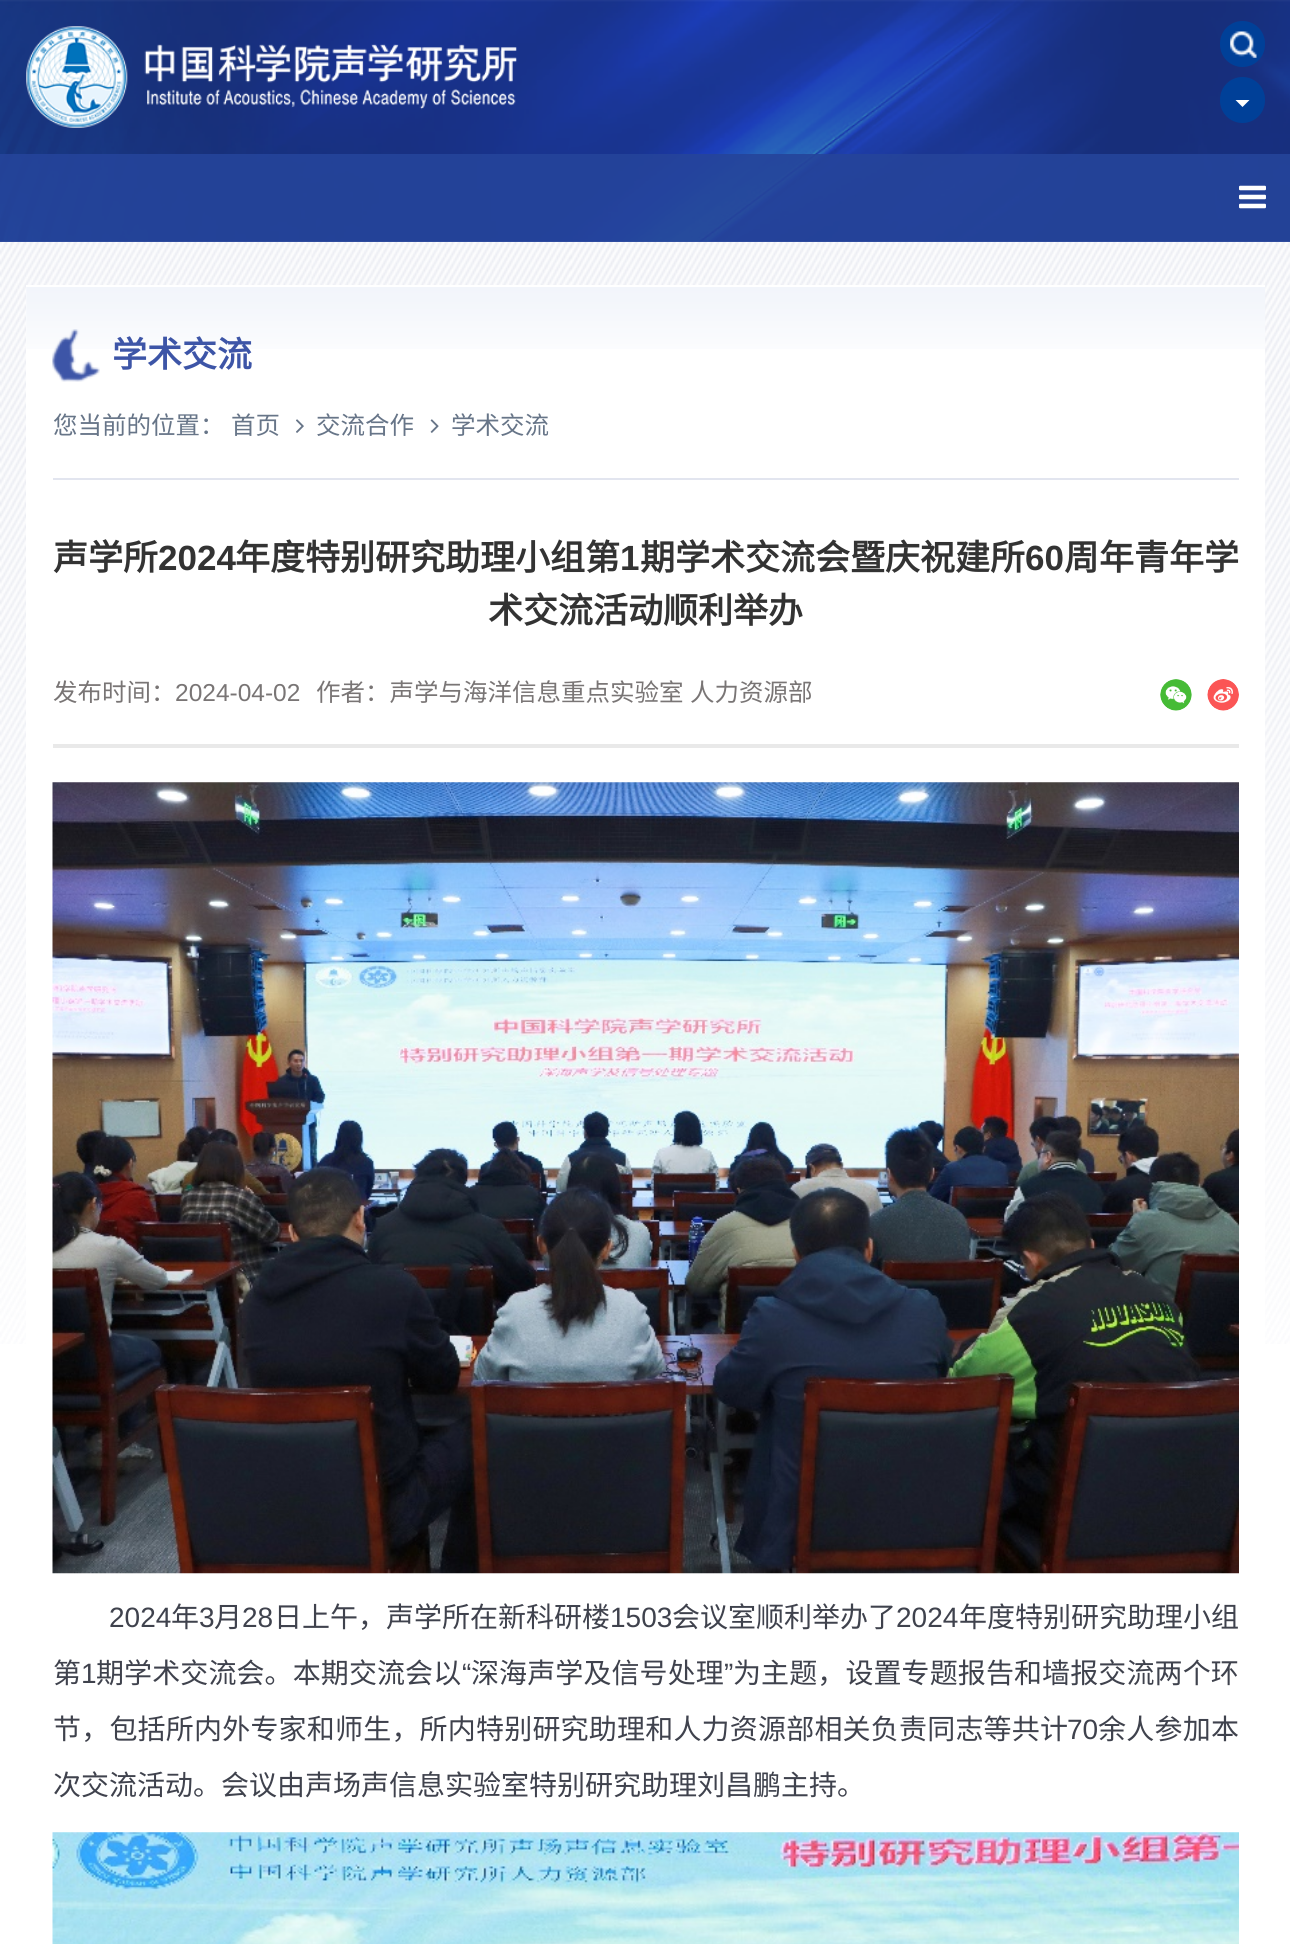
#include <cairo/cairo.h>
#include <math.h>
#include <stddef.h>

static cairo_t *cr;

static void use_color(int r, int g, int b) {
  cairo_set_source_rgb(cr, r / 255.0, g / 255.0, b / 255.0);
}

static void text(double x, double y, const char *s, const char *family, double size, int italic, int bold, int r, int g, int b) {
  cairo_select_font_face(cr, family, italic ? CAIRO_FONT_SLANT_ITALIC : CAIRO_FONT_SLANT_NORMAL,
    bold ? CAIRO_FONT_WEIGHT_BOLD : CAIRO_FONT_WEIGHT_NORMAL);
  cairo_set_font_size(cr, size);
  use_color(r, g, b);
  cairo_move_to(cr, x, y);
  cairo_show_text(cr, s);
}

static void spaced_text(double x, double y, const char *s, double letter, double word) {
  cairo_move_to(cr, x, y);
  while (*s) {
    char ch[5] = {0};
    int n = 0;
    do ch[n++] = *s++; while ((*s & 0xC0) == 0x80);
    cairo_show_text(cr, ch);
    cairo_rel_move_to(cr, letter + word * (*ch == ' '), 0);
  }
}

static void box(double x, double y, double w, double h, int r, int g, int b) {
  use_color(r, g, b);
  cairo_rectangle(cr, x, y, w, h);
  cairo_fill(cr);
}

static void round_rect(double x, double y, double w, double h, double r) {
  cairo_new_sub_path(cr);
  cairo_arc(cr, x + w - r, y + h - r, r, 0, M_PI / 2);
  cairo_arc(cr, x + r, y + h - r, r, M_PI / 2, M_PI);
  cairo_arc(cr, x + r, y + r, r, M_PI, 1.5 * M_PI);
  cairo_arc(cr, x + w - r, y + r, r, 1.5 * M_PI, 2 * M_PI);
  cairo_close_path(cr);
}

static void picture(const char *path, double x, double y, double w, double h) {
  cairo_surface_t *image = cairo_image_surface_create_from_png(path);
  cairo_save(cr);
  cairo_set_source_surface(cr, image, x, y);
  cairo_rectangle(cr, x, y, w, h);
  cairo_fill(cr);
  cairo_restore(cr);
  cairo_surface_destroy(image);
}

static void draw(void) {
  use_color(255, 255, 255);
  cairo_paint(cr);
  picture("img_01.png", 0, 0, 1290, 242);
  picture("img_02.png", 26, 26, 491, 102);
  use_color(0, 64, 152);
  round_rect(1220, 21, 45, 46, 22.5);
  cairo_fill(cr);
  picture("img_03.png", 1230, 31, 27, 27);
  round_rect(1221, 78, 43, 44, 21.5);
  cairo_fill_preserve(cr);
  cairo_stroke(cr);
  use_color(255, 255, 255);
  cairo_new_path(cr);
  cairo_move_to(cr, 1235.5, 100);
  cairo_line_to(cr, 1249.5, 100);
  cairo_line_to(cr, 1242.5, 107);
  cairo_close_path(cr);
  cairo_fill(cr);
  picture("img_05.png", 0, 241, 1290, 1103);
  cairo_set_source_rgba(cr, 0.145, 0.267, 0.604, 0.9);
  cairo_rectangle(cr, 0, 154, 1290, 88);
  cairo_fill(cr);
  picture("img_04.png", 1239, 185, 27, 24);
  box(26, 285, 1239, 1059, 255, 255, 255);
  picture("img_06.png", 26, 287, 1239, 62);
  box(53, 478, 1186, 2, 226, 229, 239);
  picture("img_07.png", 52, 329, 48, 53);
  picture("img_08.png", 296, 419, 8, 14);
  picture("img_09.png", 430, 419, 9, 14);
  box(53, 744, 1186, 4, 233, 233, 233);
  picture("img_10.png", 1160, 679, 32, 32);
  picture("img_11.png", 1207, 679, 32, 32);
  picture("img_12.png", 52, 782, 1187, 792);
  picture("img_13.png", 52, 1832, 1187, 112);
  text(112, 367, "学术交流", "Noto Sans CJK SC", 35, 0, 1, 61, 85, 167);
  text(53, 434, "您当前的位置：", "Noto Sans CJK SC", 24.5, 0, 0, 103, 117, 136);
  text(231, 434, "首页", "Noto Sans CJK SC", 24.5, 0, 0, 103, 117, 136);
  text(316, 434, "交流合作", "Noto Sans CJK SC", 24.5, 0, 0, 103, 117, 136);
  text(451, 434, "学术交流", "Noto Sans CJK SC", 24.5, 0, 0, 103, 117, 136);
  text(53, 570, "声学所", "Noto Sans CJK SC", 35, 0, 1, 51, 51, 51);
  text(158, 570, "2024", "Liberation Sans", 35, 0, 1, 51, 51, 51);
  text(235, 570, "年度特别研究助理小组第", "Noto Sans CJK SC", 35, 0, 1, 51, 51, 51);
  text(620, 570, "1", "Liberation Sans", 35, 0, 1, 51, 51, 51);
  text(640, 570, "期学术交流会暨庆祝建所", "Noto Sans CJK SC", 35, 0, 1, 51, 51, 51);
  text(1025, 570, "60", "Liberation Sans", 35, 0, 1, 51, 51, 51);
  text(1064, 570, "周年青年学", "Noto Sans CJK SC", 35, 0, 1, 51, 51, 51);
  text(488, 623, "术交流活动顺利举办", "Noto Sans CJK SC", 35, 0, 1, 51, 51, 51);
  text(53, 701, "发布时间：", "Noto Sans CJK SC", 24.5, 0, 0, 121, 117, 117);
  text(175, 701, "2024-04-02", "Liberation Sans", 24.5, 0, 0, 121, 117, 117);
  cairo_select_font_face(cr, "Noto Sans CJK SC", CAIRO_FONT_SLANT_NORMAL, CAIRO_FONT_WEIGHT_NORMAL);
  spaced_text(316, 701, "作者：声学与海洋信息重点实验室 人力资源部", 0, 1);
  text(109, 1627, "2024", "Liberation Sans", 28, 0, 0, 63, 66, 77);
  text(171, 1627, "年", "Noto Sans CJK SC", 28, 0, 0, 63, 66, 77);
  text(199, 1627, "3", "Liberation Sans", 28, 0, 0, 63, 66, 77);
  text(214, 1627, "月", "Noto Sans CJK SC", 28, 0, 0, 63, 66, 77);
  text(242, 1627, "28", "Liberation Sans", 28, 0, 0, 63, 66, 77);
  text(274, 1627, "日上午，声学所在新科研楼", "Noto Sans CJK SC", 28, 0, 0, 63, 66, 77);
  text(610, 1627, "1503", "Liberation Sans", 28, 0, 0, 63, 66, 77);
  text(672, 1627, "会议室顺利举办了", "Noto Sans CJK SC", 28, 0, 0, 63, 66, 77);
  text(896, 1627, "2024", "Liberation Sans", 28, 0, 0, 63, 66, 77);
  text(959, 1627, "年度特别研究助理小组", "Noto Sans CJK SC", 28, 0, 0, 63, 66, 77);
  text(53, 1683, "第", "Noto Sans CJK SC", 28, 0, 0, 63, 66, 77);
  text(81, 1683, "1", "Liberation Sans", 28, 0, 0, 63, 66, 77);
  cairo_select_font_face(cr, "Noto Sans CJK SC", CAIRO_FONT_SLANT_NORMAL, CAIRO_FONT_WEIGHT_NORMAL);
  spaced_text(96, 1683, "期学术交流会。本期交流会以", 0.1, 0);
  cairo_select_font_face(cr, "Liberation Sans", CAIRO_FONT_SLANT_NORMAL, CAIRO_FONT_WEIGHT_NORMAL);
  spaced_text(462, 1683, "“", 0.1, 0);
  cairo_select_font_face(cr, "Noto Sans CJK SC", CAIRO_FONT_SLANT_NORMAL, CAIRO_FONT_WEIGHT_NORMAL);
  spaced_text(471, 1683, "深海声学及信号处理", 0.1, 0);
  cairo_select_font_face(cr, "Liberation Sans", CAIRO_FONT_SLANT_NORMAL, CAIRO_FONT_WEIGHT_NORMAL);
  spaced_text(724, 1683, "”", 0.1, 0);
  cairo_select_font_face(cr, "Noto Sans CJK SC", CAIRO_FONT_SLANT_NORMAL, CAIRO_FONT_WEIGHT_NORMAL);
  spaced_text(733, 1683, "为主题，设置专题报告和墙报交流两个环", 0.1, 0);
  spaced_text(53, 1739, "节，包括所内外专家和师生，所内特别研究助理和人力资源部相关负责同志等共计", 0.2, 0);
  text(1067, 1739, "70", "Liberation Sans", 28, 0, 0, 63, 66, 77);
  cairo_select_font_face(cr, "Noto Sans CJK SC", CAIRO_FONT_SLANT_NORMAL, CAIRO_FONT_WEIGHT_NORMAL);
  spaced_text(1098, 1739, "余人参加本", 0.25, 0);
  text(53, 1795, "次交流活动。会议由声场声信息实验室特别研究助理刘昌鹏主持。", "Noto Sans CJK SC", 28, 0, 0, 63, 66, 77);
}

int main(void) {
  cairo_surface_t *surface = cairo_image_surface_create(CAIRO_FORMAT_RGB24, 1290, 1944);
  cr = cairo_create(surface);
  cairo_font_options_t *options = cairo_font_options_create();
  cairo_font_options_set_hint_metrics(options, CAIRO_HINT_METRICS_OFF);
  cairo_font_options_set_hint_style(options, CAIRO_HINT_STYLE_NONE);
  cairo_set_font_options(cr, options);
  cairo_set_miter_limit(cr, 4);
  draw();
  cairo_surface_write_to_png(surface, "out.png");
  cairo_font_options_destroy(options);
  cairo_destroy(cr);
  cairo_surface_destroy(surface);
  return 0;
}
